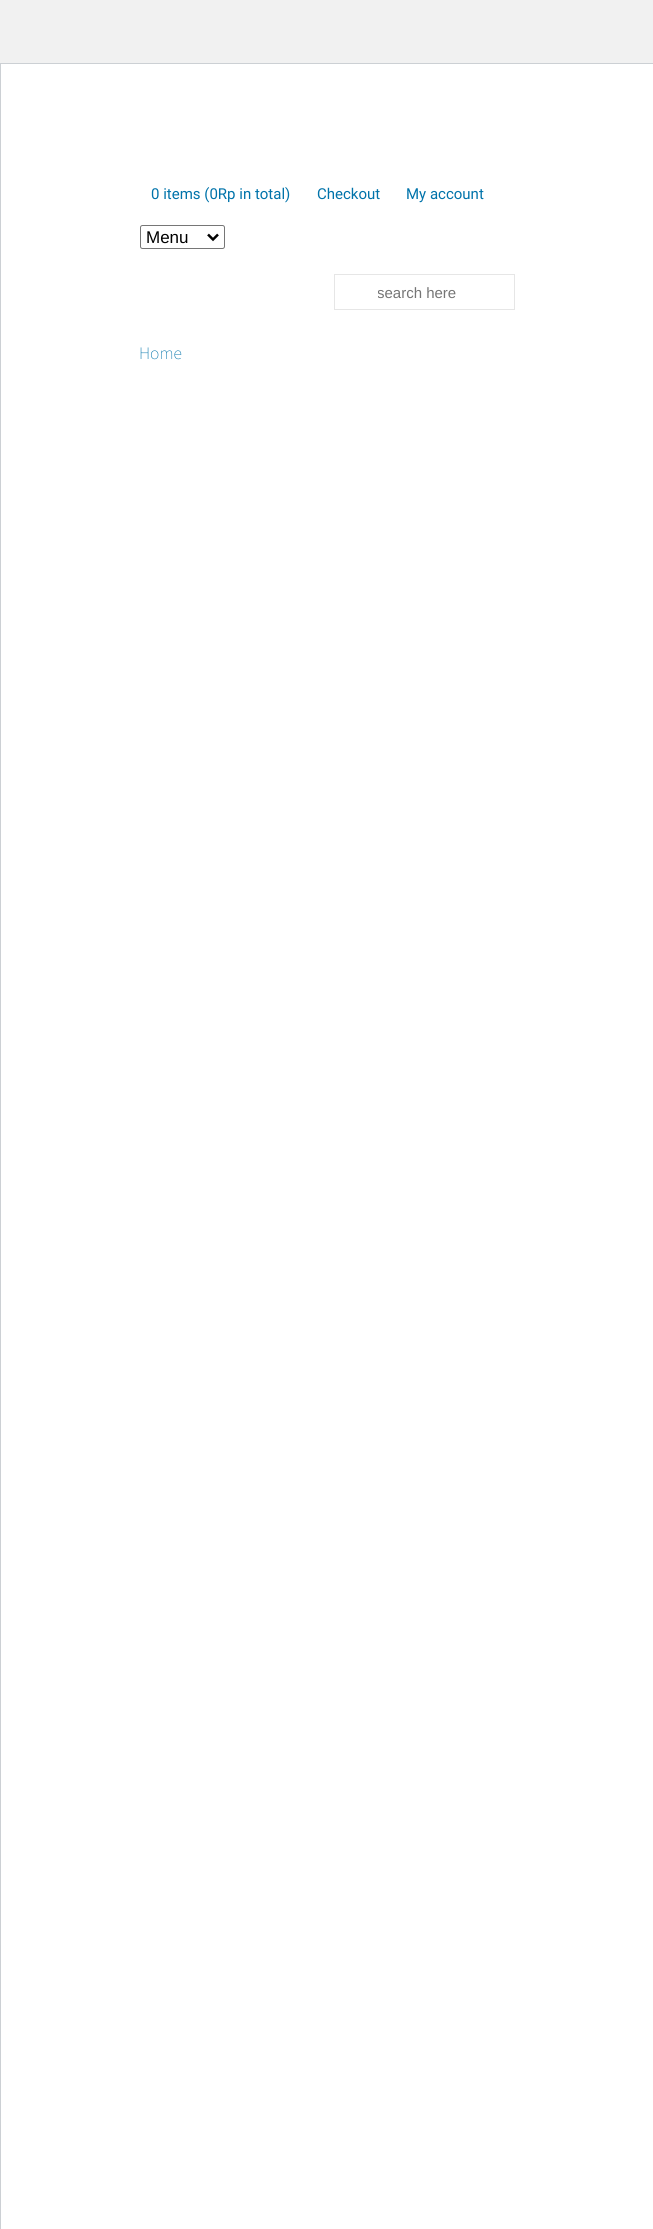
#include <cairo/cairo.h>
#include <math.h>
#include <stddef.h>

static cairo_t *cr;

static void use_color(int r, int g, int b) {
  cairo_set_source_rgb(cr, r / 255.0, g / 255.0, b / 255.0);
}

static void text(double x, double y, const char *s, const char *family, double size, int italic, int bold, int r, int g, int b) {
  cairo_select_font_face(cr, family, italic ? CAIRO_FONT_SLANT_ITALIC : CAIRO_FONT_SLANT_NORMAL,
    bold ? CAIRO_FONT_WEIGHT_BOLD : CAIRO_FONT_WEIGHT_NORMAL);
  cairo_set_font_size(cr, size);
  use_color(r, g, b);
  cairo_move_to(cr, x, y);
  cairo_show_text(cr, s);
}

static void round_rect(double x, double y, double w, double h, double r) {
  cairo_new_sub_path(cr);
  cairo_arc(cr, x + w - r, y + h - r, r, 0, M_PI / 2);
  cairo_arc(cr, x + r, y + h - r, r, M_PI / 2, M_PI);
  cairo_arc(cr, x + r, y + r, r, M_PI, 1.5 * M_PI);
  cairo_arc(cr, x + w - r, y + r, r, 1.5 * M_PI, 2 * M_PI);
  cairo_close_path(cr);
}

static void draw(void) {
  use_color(241, 241, 241);
  cairo_paint(cr);
  use_color(255, 255, 255);
  cairo_rectangle(cr, 0.5, 63.5, 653, 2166);
  cairo_fill_preserve(cr);
  use_color(204, 208, 212);
  cairo_set_line_width(cr, 1);
  cairo_stroke(cr);
  round_rect(140.5, 225.5, 84, 23, 2);
  use_color(118, 118, 118);
  cairo_stroke(cr);
  cairo_new_path(cr);
  cairo_move_to(cr, 208, 234.5);
  cairo_line_to(cr, 213, 239.5);
  cairo_line_to(cr, 218, 234.5);
  use_color(0, 0, 0);
  cairo_set_line_width(cr, 2.5);
  cairo_stroke(cr);
  cairo_rectangle(cr, 334.5, 274.5, 180, 35);
  use_color(230, 230, 230);
  cairo_set_line_width(cr, 1);
  cairo_stroke(cr);
  text(151, 199, "0 items (0Rp in total)", "Roboto", 15, 0, 0, 0, 115, 170);
  text(317, 199, "Checkout", "Roboto", 15, 0, 0, 0, 115, 170);
  text(406, 199, "My account", "Roboto", 15, 0, 0, 0, 115, 170);
  text(146, 243, "Menu", "Liberation Sans", 17, 0, 0, 0, 0, 0);
  cairo_save(cr);
  cairo_rectangle(cr, 378, 284, 123, 17);
  cairo_clip(cr);
  text(377, 298, "search here", "Liberation Sans", 15, 0, 0, 117, 117, 117);
  cairo_restore(cr);
  text(139, 359, "Home", "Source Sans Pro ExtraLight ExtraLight", 17.5, 0, 0, 0, 115, 170);
}

int main(void) {
  cairo_surface_t *surface = cairo_image_surface_create(CAIRO_FORMAT_RGB24, 653, 2229);
  cr = cairo_create(surface);
  cairo_font_options_t *options = cairo_font_options_create();
  cairo_font_options_set_hint_metrics(options, CAIRO_HINT_METRICS_OFF);
  cairo_font_options_set_hint_style(options, CAIRO_HINT_STYLE_NONE);
  cairo_set_font_options(cr, options);
  cairo_set_miter_limit(cr, 4);
  draw();
  cairo_surface_write_to_png(surface, "out.png");
  cairo_font_options_destroy(options);
  cairo_destroy(cr);
  cairo_surface_destroy(surface);
  return 0;
}
